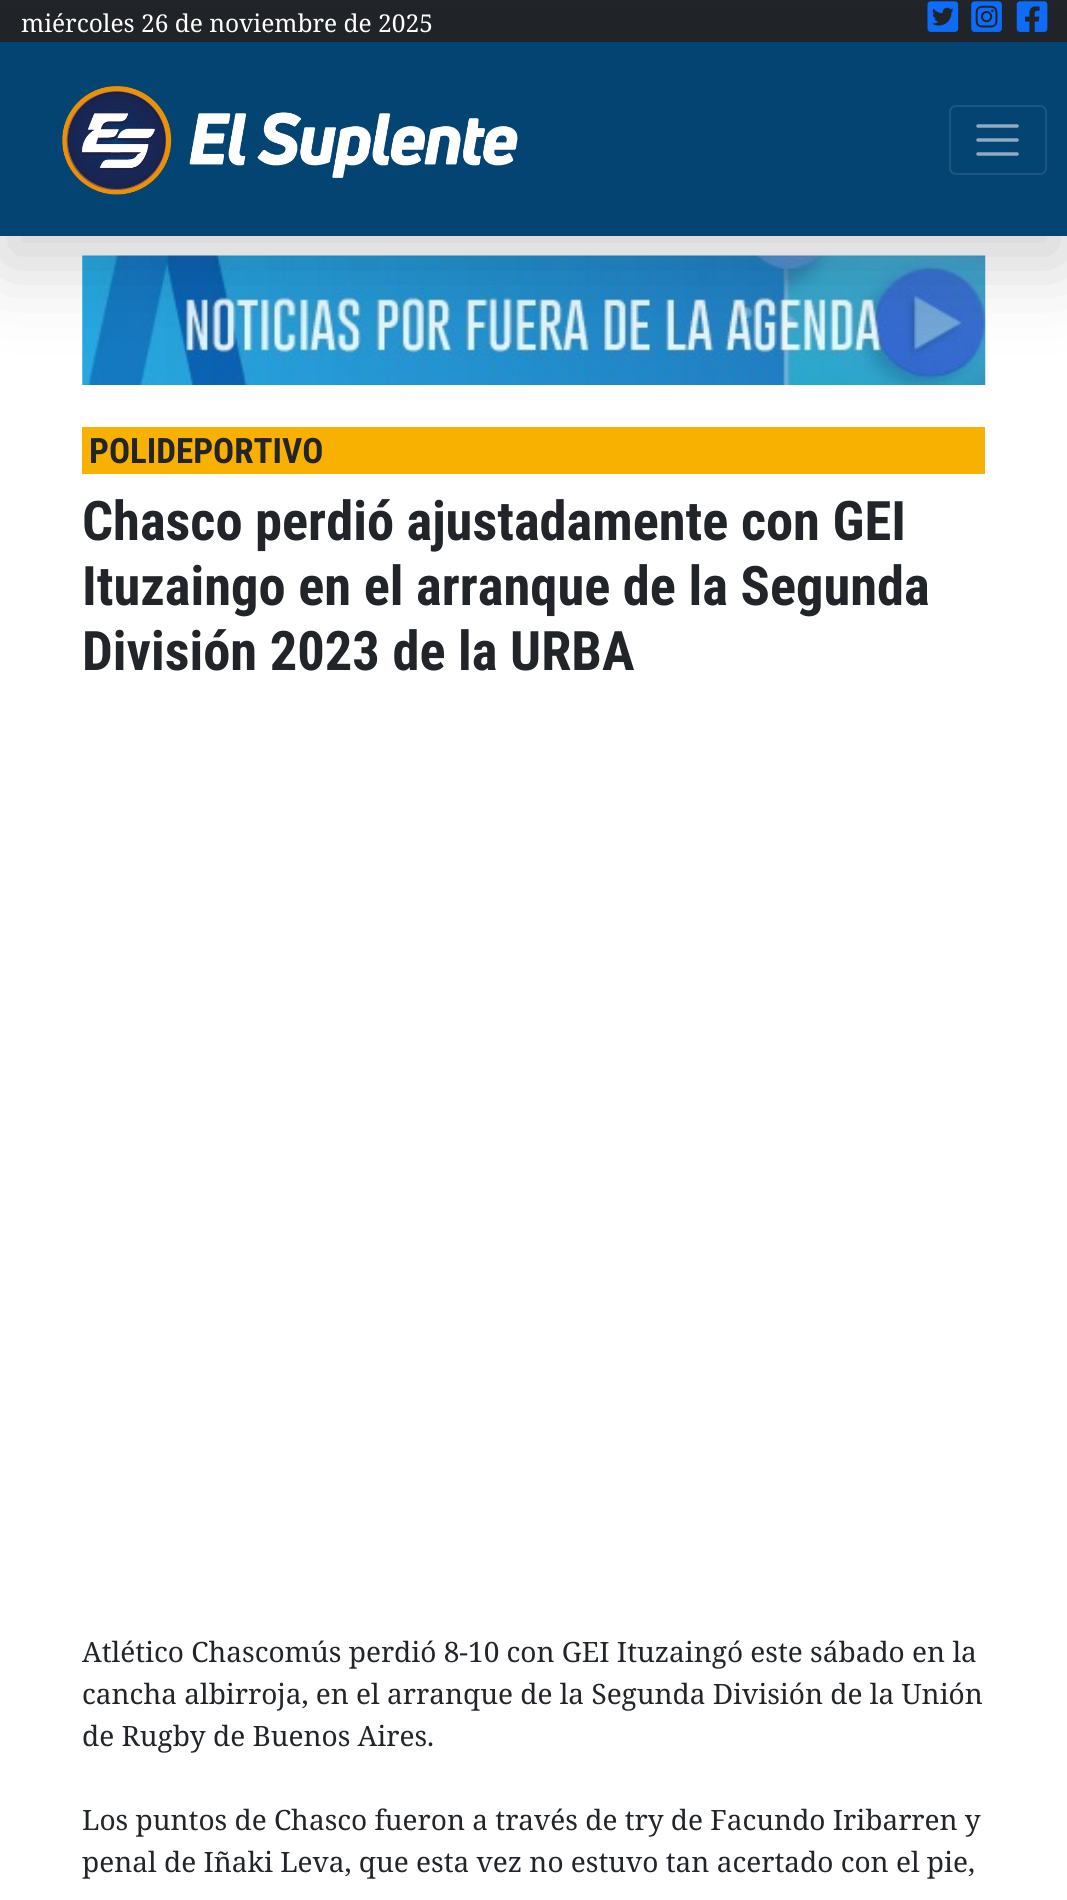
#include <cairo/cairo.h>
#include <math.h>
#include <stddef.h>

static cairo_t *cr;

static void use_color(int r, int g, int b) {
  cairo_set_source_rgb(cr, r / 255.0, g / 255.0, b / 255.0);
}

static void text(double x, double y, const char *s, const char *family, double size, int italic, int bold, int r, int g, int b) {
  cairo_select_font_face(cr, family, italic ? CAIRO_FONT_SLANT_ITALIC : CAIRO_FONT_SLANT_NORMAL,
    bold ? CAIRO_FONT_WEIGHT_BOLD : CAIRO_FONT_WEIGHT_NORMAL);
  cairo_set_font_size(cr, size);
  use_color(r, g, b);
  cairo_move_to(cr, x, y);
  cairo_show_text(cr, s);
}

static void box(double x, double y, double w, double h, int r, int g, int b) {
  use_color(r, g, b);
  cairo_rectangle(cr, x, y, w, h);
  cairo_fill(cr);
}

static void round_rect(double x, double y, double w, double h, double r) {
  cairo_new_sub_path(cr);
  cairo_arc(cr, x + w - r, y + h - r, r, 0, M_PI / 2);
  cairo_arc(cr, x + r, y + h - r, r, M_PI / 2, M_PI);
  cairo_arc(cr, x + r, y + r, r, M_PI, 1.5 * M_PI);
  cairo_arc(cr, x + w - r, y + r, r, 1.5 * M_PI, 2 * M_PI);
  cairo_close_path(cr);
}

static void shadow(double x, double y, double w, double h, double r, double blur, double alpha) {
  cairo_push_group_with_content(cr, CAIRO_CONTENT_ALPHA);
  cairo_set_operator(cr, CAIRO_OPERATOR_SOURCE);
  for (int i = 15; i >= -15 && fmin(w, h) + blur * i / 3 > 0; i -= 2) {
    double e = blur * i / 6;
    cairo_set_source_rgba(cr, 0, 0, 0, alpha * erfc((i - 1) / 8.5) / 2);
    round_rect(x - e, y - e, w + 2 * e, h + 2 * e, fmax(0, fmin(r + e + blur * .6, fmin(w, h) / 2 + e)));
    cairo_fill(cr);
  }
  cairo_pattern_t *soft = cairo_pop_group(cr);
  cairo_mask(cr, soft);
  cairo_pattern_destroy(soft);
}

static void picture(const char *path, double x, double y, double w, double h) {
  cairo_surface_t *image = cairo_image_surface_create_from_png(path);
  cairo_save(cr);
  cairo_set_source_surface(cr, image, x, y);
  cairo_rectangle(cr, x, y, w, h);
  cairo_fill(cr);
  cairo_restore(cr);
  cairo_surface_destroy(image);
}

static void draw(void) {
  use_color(255, 255, 255);
  cairo_paint(cr);
  box(0, 0, 1067, 42, 33, 37, 41);
  picture("img_02.png", 927, 1, 32, 31);
  picture("img_03.png", 971, 1, 31, 31);
  picture("img_04.png", 1016, 1, 32, 31);
  picture("img_05.png", 82, 255, 904, 130);
  use_color(0, 0, 0);
  shadow(0, 70, 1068, 194, 0, 42, 0.18);
  box(0, 42, 1067, 194, 4, 68, 115);
  picture("img_01.png", 62, 86, 456, 109);
  round_rect(950, 106, 96, 68, 6);
  use_color(29, 87, 129);
  cairo_stroke(cr);
  cairo_new_path(cr);
  cairo_move_to(cr, 978, 126);
  cairo_line_to(cr, 1017, 126);
  cairo_move_to(cr, 978, 140);
  cairo_line_to(cr, 1017, 140);
  cairo_move_to(cr, 978, 154);
  cairo_line_to(cr, 1017, 154);
  use_color(142, 171, 192);
  cairo_set_line_width(cr, 3.5);
  cairo_set_line_cap(cr, CAIRO_LINE_CAP_ROUND);
  cairo_stroke(cr);
  box(82, 427, 903, 47, 248, 177, 1);
  text(21, 32, "miércoles 26 de noviembre de 2025", "Noto Serif", 24.5, 0, 0, 255, 255, 255);
  text(89, 463, "POLIDEPORTIVO", "Roboto Condensed", 35, 0, 1, 33, 37, 41);
  text(82, 540, "Chasco perdió ajustadamente con GEI", "Roboto Condensed", 54.5, 0, 1, 33, 37, 41);
  text(82, 605, "Ituzaingo en el arranque de la Segunda", "Roboto Condensed", 54.5, 0, 1, 33, 37, 41);
  text(82, 670, "División 2023 de la URBA", "Roboto Condensed", 54.5, 0, 1, 33, 37, 41);
  text(82, 1662, "Atlético Chascomús perdió 8-10 con GEI Ituzaingó este sábado en la", "Noto Serif", 28, 0, 0, 33, 37, 41);
  text(82, 1704, "cancha albirroja, en el arranque de la Segunda División de la Unión", "Noto Serif", 28, 0, 0, 33, 37, 41);
  text(82, 1746, "de Rugby de Buenos Aires.", "Noto Serif", 28, 0, 0, 33, 37, 41);
  text(82, 1830, "Los puntos de Chasco fueron a través de try de Facundo Iribarren y", "Noto Serif", 28, 0, 0, 33, 37, 41);
  text(82, 1872, "penal de Iñaki Leva, que esta vez no estuvo tan acertado con el pie,", "Noto Serif", 28, 0, 0, 33, 37, 41);
}

int main(void) {
  cairo_surface_t *surface = cairo_image_surface_create(CAIRO_FORMAT_RGB24, 1067, 1900);
  cr = cairo_create(surface);
  cairo_font_options_t *options = cairo_font_options_create();
  cairo_font_options_set_hint_metrics(options, CAIRO_HINT_METRICS_OFF);
  cairo_font_options_set_hint_style(options, CAIRO_HINT_STYLE_NONE);
  cairo_set_font_options(cr, options);
  cairo_set_miter_limit(cr, 4);
  draw();
  cairo_surface_write_to_png(surface, "out.png");
  cairo_font_options_destroy(options);
  cairo_destroy(cr);
  cairo_surface_destroy(surface);
  return 0;
}
